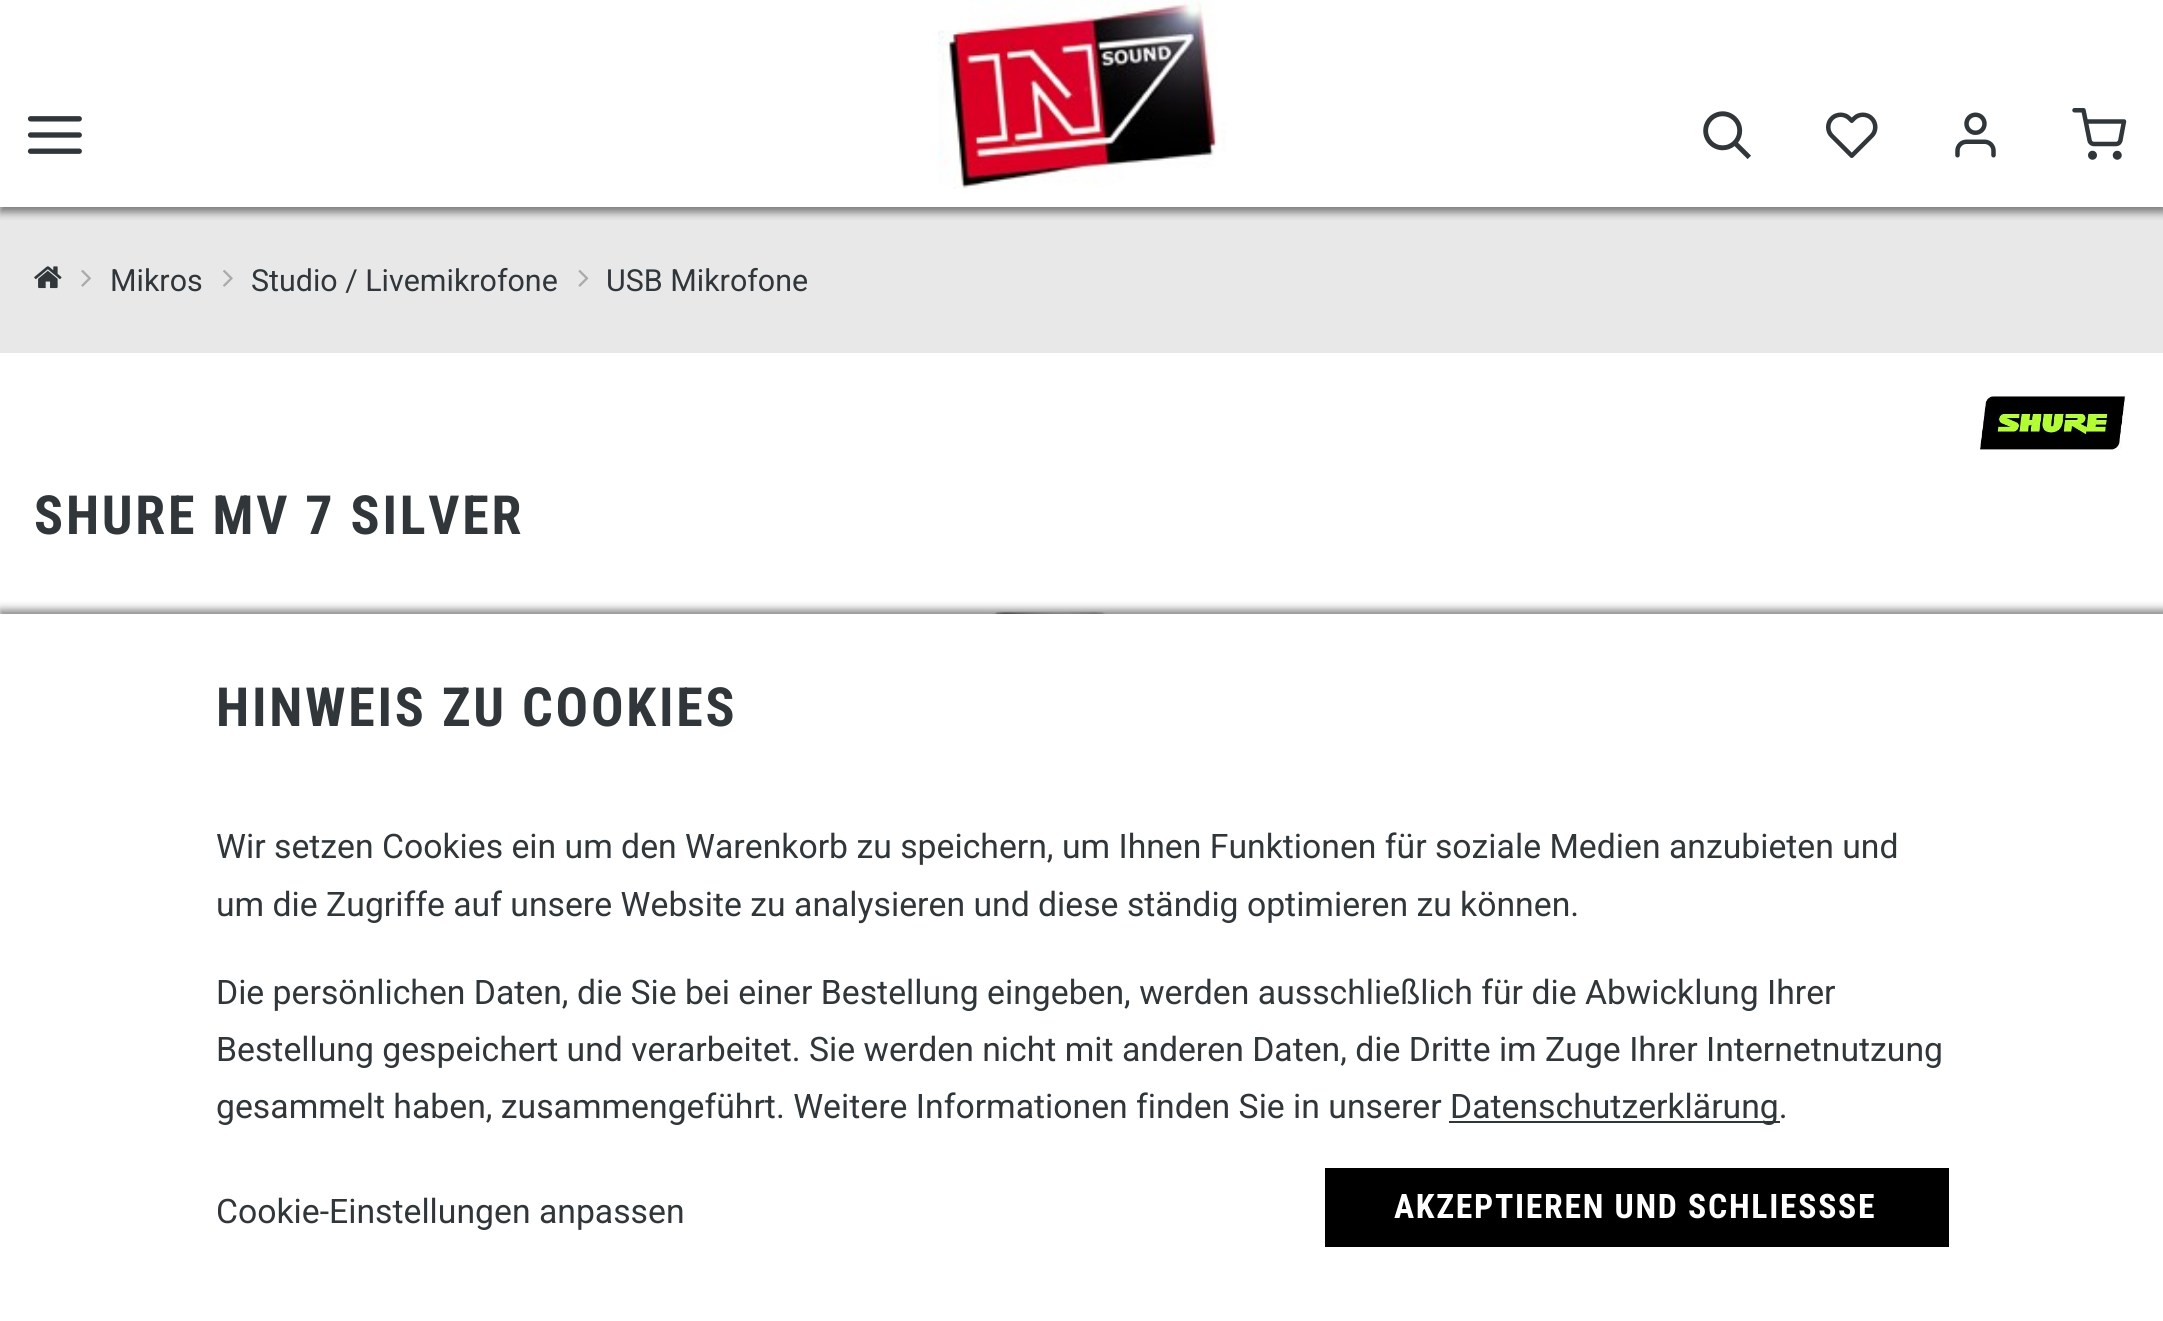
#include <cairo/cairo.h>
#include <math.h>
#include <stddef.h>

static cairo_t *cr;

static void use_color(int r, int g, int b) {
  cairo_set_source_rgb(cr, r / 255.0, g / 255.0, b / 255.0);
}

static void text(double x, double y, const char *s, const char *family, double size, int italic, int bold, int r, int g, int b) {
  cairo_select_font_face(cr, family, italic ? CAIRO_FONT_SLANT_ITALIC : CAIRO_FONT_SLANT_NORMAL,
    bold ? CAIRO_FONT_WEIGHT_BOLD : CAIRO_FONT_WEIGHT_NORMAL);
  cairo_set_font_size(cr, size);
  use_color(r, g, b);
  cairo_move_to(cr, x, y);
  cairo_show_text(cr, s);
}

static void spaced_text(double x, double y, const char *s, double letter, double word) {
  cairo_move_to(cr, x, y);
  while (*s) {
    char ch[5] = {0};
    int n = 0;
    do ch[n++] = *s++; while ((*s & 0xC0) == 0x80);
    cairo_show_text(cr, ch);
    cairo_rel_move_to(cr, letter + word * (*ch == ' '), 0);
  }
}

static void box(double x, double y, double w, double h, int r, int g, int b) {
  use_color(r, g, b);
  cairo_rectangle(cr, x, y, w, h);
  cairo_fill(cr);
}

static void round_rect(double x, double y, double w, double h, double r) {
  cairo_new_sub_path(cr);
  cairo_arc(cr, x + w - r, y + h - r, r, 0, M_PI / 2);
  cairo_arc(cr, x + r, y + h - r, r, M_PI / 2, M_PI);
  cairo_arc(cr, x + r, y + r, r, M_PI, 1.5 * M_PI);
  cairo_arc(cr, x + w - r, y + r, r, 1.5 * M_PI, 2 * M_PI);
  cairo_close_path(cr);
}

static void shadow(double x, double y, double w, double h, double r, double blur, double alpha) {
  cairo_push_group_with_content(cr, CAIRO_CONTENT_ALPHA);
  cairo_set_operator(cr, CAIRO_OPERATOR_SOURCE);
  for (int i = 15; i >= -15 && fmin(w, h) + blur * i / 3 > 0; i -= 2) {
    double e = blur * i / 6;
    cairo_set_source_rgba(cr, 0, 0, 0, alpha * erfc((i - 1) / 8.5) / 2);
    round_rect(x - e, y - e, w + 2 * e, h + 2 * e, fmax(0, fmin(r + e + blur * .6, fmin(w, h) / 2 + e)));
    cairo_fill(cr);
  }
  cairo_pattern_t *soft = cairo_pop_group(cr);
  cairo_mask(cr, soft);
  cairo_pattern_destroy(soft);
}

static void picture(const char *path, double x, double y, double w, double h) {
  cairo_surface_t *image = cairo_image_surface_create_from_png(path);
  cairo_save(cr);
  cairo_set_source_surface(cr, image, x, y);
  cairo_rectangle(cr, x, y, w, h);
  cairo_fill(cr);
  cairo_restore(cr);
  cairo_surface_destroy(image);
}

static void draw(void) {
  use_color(255, 255, 255);
  cairo_paint(cr);
  box(0, 207, 2163, 146, 232, 232, 232);
  cairo_save(cr);
  cairo_rectangle(cr, 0, 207, 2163, 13);
  cairo_clip(cr);
  use_color(0, 0, 0);
  shadow(0, 5, 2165, 207, 0, 4.5, 0.5);
  cairo_restore(cr);
  picture("img_01.png", 27, 116, 55, 38);
  picture("img_02.png", 938, 0, 288, 189);
  picture("img_03.png", 1703, 111, 48, 48);
  picture("img_04.png", 1826, 112, 52, 46);
  picture("img_05.png", 1955, 112, 41, 46);
  picture("img_06.png", 2072, 108, 55, 52);
  picture("img_07.png", 34, 266, 28, 23);
  picture("img_08.png", 81, 270, 10, 17);
  picture("img_09.png", 223, 270, 10, 17);
  picture("img_10.png", 578, 270, 11, 17);
  picture("img_11.png", 1979, 396, 147, 54);
  picture("img_12.png", 695, 611, 718, 3);
  use_color(0, 0, 0);
  shadow(0, 610, 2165, 709, 0, 4.5, 0.5);
  box(0, 614, 2163, 707, 255, 255, 255);
  box(1449, 1121, 331, 2, 48, 54, 57);
  box(1325, 1168, 624, 79, 0, 0, 0);
  text(110, 291, "Mikros", "Roboto", 30.4, 0, 0, 48, 54, 57);
  text(251, 291, "Studio / Livemikrofone", "Roboto", 30.4, 0, 0, 48, 54, 57);
  text(606, 291, "USB Mikrofone", "Roboto", 30.4, 0, 0, 48, 54, 57);
  cairo_select_font_face(cr, "Roboto Condensed", CAIRO_FONT_SLANT_NORMAL, CAIRO_FONT_WEIGHT_BOLD);
  cairo_set_font_size(cr, 54);
  spaced_text(34, 534, "SHURE MV 7 SILVER", 2.75, 0);
  spaced_text(216, 726, "HINWEIS ZU COOKIES", 2.75, 0);
  text(216, 858, "Wir setzen Cookies ein um den Warenkorb zu speichern, um Ihnen Funktionen für soziale Medien anzubieten und", "Roboto", 33.75, 0, 0, 48, 54, 57);
  text(216, 916, "um die Zugriffe auf unsere Website zu analysieren und diese ständig optimieren zu können.", "Roboto", 33.75, 0, 0, 48, 54, 57);
  text(216, 1004, "Die persönlichen Daten, die Sie bei einer Bestellung eingeben, werden ausschließlich für die Abwicklung Ihrer", "Roboto", 33.75, 0, 0, 48, 54, 57);
  text(216, 1061, "Bestellung gespeichert und verarbeitet. Sie werden nicht mit anderen Daten, die Dritte im Zuge Ihrer Internetnutzung", "Roboto", 33.75, 0, 0, 48, 54, 57);
  text(216, 1118, "gesammelt haben, zusammengeführt. Weitere Informationen finden Sie in unserer", "Roboto", 33.75, 0, 0, 48, 54, 57);
  text(1450, 1118, "Datenschutzerklärung.", "Roboto", 33.75, 0, 0, 48, 54, 57);
  text(216, 1223, "Cookie-Einstellungen anpassen", "Roboto", 33.75, 0, 0, 48, 54, 57);
  cairo_select_font_face(cr, "Roboto Condensed", CAIRO_FONT_SLANT_NORMAL, CAIRO_FONT_WEIGHT_BOLD);
  use_color(255, 255, 255);
  spaced_text(1394, 1218, "AKZEPTIEREN UND SCHLIESSSE", 1.7, 0);
}

int main(void) {
  cairo_surface_t *surface = cairo_image_surface_create(CAIRO_FORMAT_RGB24, 2163, 1321);
  cr = cairo_create(surface);
  cairo_font_options_t *options = cairo_font_options_create();
  cairo_font_options_set_hint_metrics(options, CAIRO_HINT_METRICS_OFF);
  cairo_font_options_set_hint_style(options, CAIRO_HINT_STYLE_NONE);
  cairo_set_font_options(cr, options);
  cairo_set_miter_limit(cr, 4);
  draw();
  cairo_surface_write_to_png(surface, "out.png");
  cairo_font_options_destroy(options);
  cairo_destroy(cr);
  cairo_surface_destroy(surface);
  return 0;
}
